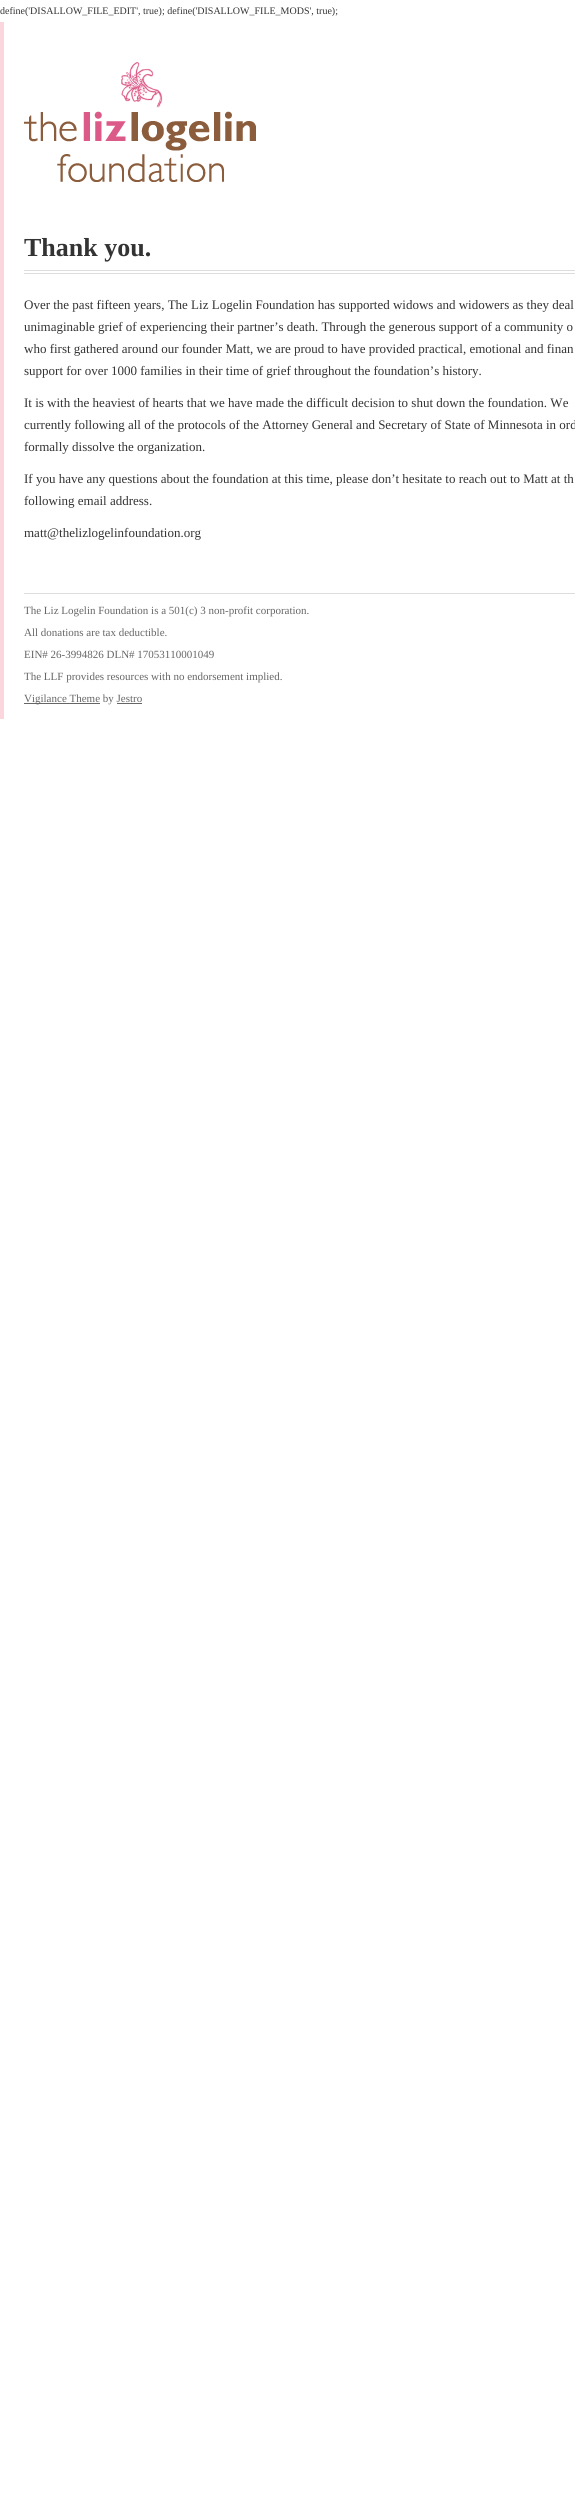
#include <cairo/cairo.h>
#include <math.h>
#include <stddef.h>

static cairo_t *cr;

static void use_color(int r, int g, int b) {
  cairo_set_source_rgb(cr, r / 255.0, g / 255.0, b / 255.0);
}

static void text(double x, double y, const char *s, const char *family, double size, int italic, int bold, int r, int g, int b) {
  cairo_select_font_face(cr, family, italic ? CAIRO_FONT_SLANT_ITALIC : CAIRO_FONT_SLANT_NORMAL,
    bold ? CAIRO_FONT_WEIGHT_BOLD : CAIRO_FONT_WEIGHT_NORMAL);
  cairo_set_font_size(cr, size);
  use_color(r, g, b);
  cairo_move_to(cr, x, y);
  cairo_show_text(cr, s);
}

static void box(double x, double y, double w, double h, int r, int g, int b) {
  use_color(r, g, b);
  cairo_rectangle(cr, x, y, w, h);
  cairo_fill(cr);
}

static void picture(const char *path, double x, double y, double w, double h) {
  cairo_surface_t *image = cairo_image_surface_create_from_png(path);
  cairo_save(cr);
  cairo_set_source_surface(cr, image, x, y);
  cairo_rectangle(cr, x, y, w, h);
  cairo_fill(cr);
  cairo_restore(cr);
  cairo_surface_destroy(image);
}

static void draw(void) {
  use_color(255, 255, 255);
  cairo_paint(cr);
  box(0, 22, 4, 697, 251, 214, 221);
  picture("img_01.png", 24, 62, 232, 120);
  box(24, 270, 551, 1, 221, 221, 221);
  box(24, 273, 551, 1, 221, 221, 221);
  box(24, 593, 551, 1, 221, 221, 221);
  box(24, 703, 76, 1, 102, 102, 102);
  box(117, 703, 25, 1, 102, 102, 102);
  text(0, 14, "define('DISALLOW_FILE_EDIT', true); define('DISALLOW_FILE_MODS', true);", "Liberation Serif", 10, 0, 0, 51, 51, 51);
  text(24, 256, "Thank you.", "Liberation Serif", 26, 0, 1, 51, 51, 51);
  text(24, 309, "Over the past fifteen years, The Liz Logelin Foundation has supported widows and widowers as they deal", "Liberation Serif", 13, 0, 0, 51, 51, 51);
  text(24, 331, "unimaginable grief of experiencing their partner’s death. Through the generous support of a community o", "Liberation Serif", 13, 0, 0, 51, 51, 51);
  text(24, 353, "who first gathered around our founder Matt, we are proud to have provided practical, emotional and finan", "Liberation Serif", 13, 0, 0, 51, 51, 51);
  text(24, 375, "support for over 1000 families in their time of grief throughout the foundation’s history.", "Liberation Serif", 13, 0, 0, 51, 51, 51);
  text(24, 407, "It is with the heaviest of hearts that we have made the difficult decision to shut down the foundation. We", "Liberation Serif", 13, 0, 0, 51, 51, 51);
  text(24, 429, "currently following all of the protocols of the Attorney General and Secretary of State of Minnesota in ord", "Liberation Serif", 13, 0, 0, 51, 51, 51);
  text(24, 451, "formally dissolve the organization.", "Liberation Serif", 13, 0, 0, 51, 51, 51);
  text(24, 483, "If you have any questions about the foundation at this time, please don’t hesitate to reach out to Matt at th", "Liberation Serif", 13, 0, 0, 51, 51, 51);
  text(24, 505, "following email address.", "Liberation Serif", 13, 0, 0, 51, 51, 51);
  text(24, 537, "matt@thelizlogelinfoundation.org", "Liberation Serif", 13, 0, 0, 51, 51, 51);
  text(24, 614, "The Liz Logelin Foundation is a 501(c) 3 non-profit corporation.", "Liberation Serif", 11, 0, 0, 102, 102, 102);
  text(24, 636, "All donations are tax deductible.", "Liberation Serif", 11, 0, 0, 102, 102, 102);
  text(24, 658, "EIN# 26-3994826 DLN# 17053110001049", "Liberation Serif", 11, 0, 0, 102, 102, 102);
  text(24, 680, "The LLF provides resources with no endorsement implied.", "Liberation Serif", 11, 0, 0, 102, 102, 102);
  text(24, 702, "Vigilance Theme by Jestro", "Liberation Serif", 11, 0, 0, 102, 102, 102);
}

int main(void) {
  cairo_surface_t *surface = cairo_image_surface_create(CAIRO_FORMAT_RGB24, 575, 2515);
  cr = cairo_create(surface);
  cairo_font_options_t *options = cairo_font_options_create();
  cairo_font_options_set_hint_metrics(options, CAIRO_HINT_METRICS_OFF);
  cairo_font_options_set_hint_style(options, CAIRO_HINT_STYLE_NONE);
  cairo_set_font_options(cr, options);
  cairo_set_miter_limit(cr, 4);
  draw();
  cairo_surface_write_to_png(surface, "out.png");
  cairo_font_options_destroy(options);
  cairo_destroy(cr);
  cairo_surface_destroy(surface);
  return 0;
}
